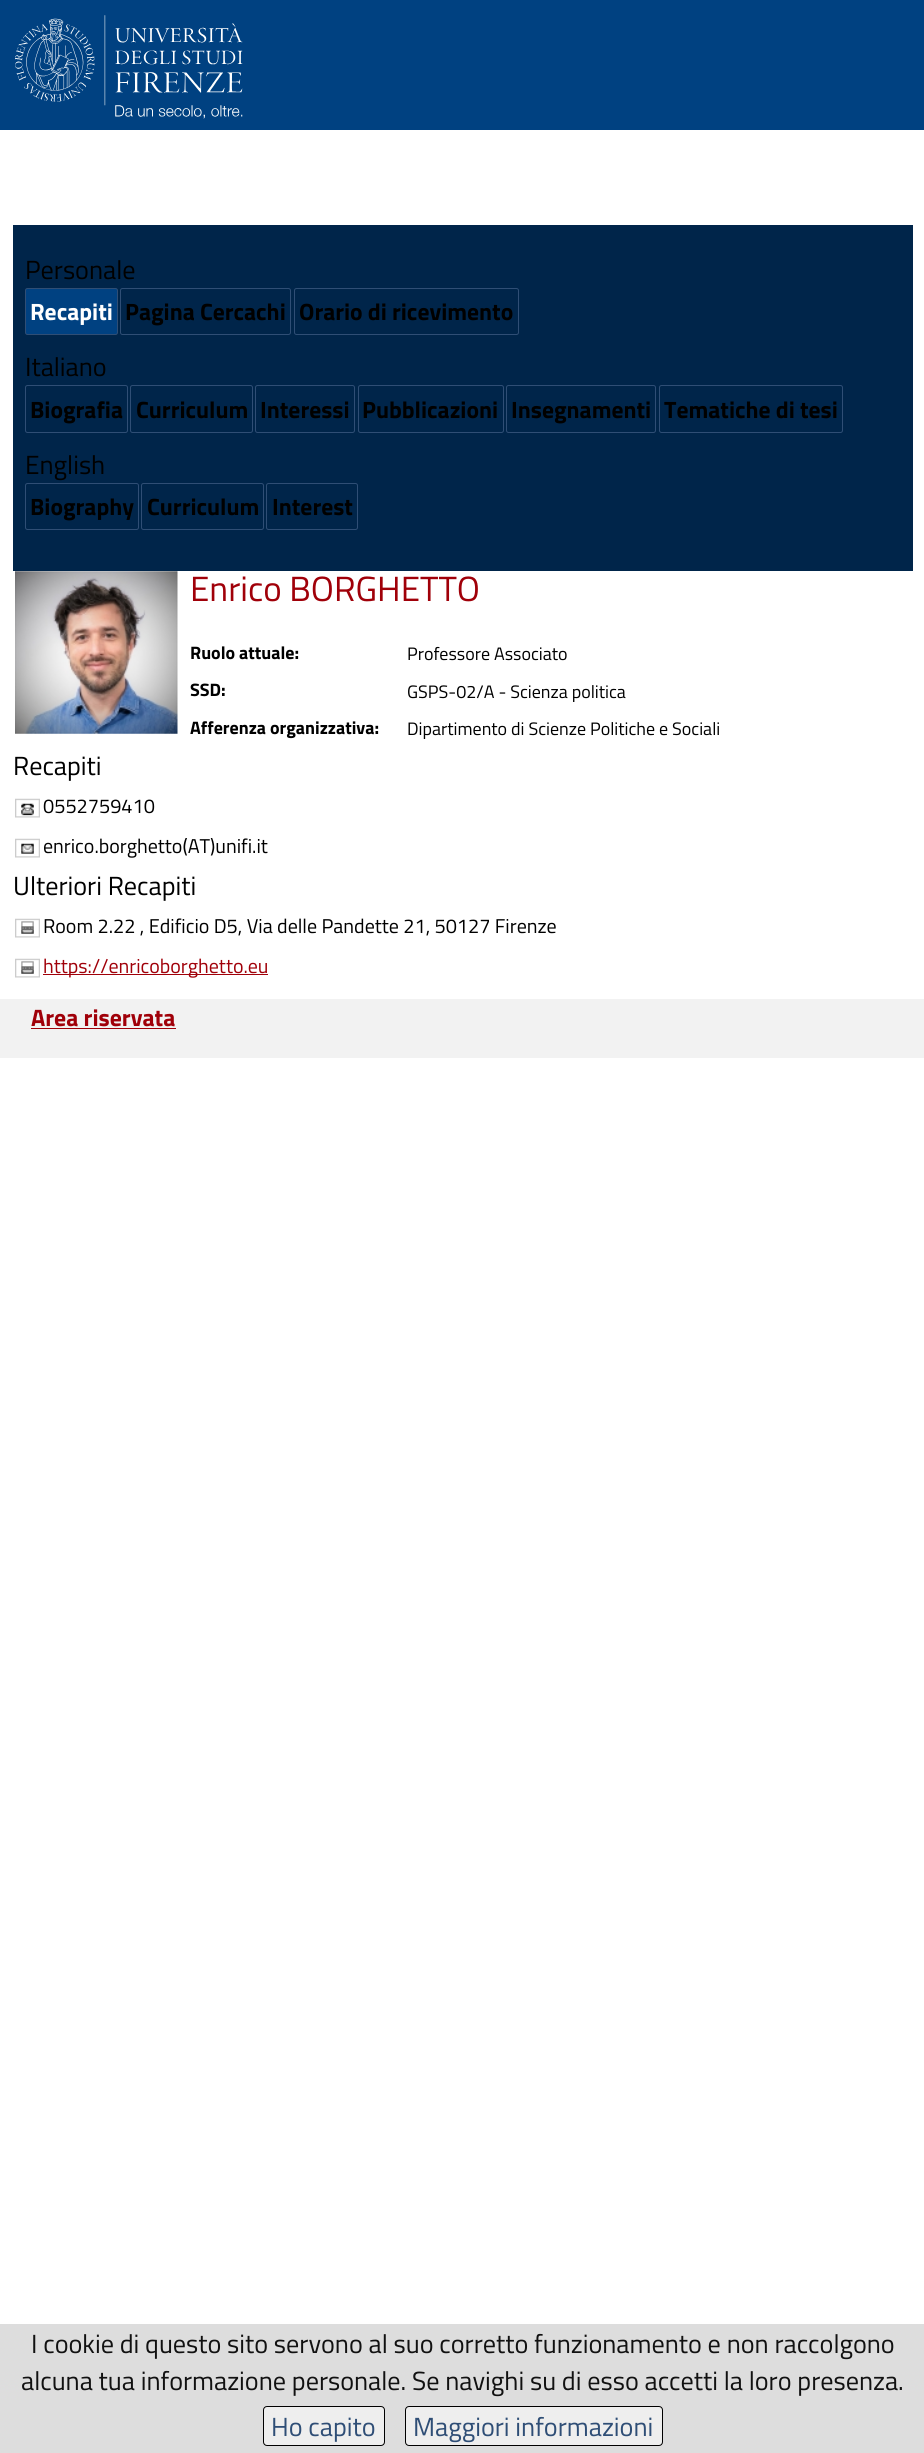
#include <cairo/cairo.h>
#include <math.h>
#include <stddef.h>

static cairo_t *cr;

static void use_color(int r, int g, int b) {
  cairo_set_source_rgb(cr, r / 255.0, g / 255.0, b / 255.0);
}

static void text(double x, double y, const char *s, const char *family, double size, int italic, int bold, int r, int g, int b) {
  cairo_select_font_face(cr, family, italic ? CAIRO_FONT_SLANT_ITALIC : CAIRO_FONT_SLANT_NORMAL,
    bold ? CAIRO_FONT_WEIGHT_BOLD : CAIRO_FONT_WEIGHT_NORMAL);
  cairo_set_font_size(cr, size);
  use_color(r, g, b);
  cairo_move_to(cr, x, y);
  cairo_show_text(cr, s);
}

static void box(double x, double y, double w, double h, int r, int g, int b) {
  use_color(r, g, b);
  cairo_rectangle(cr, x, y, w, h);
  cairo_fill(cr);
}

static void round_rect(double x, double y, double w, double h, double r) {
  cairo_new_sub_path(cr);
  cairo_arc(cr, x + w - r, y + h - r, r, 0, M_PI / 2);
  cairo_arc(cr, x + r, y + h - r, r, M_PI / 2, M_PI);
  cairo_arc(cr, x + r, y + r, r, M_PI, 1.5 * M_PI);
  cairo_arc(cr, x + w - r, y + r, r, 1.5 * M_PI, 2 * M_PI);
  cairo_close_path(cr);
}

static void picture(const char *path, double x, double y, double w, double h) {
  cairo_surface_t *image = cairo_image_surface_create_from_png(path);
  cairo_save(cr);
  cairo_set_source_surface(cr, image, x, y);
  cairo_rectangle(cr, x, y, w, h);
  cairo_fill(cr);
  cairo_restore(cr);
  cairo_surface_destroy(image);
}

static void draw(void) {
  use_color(255, 255, 255);
  cairo_paint(cr);
  box(0, 0, 924, 130, 0, 65, 129);
  picture("img_01.png", 15, 15, 228, 104);
  box(13, 225, 900, 346, 0, 37, 74);
  use_color(0, 65, 129);
  round_rect(25.5, 288.5, 92, 46, 2);
  cairo_fill_preserve(cr);
  use_color(47, 78, 117);
  cairo_set_line_width(cr, 1);
  cairo_stroke(cr);
  round_rect(120.5, 288.5, 170, 46, 2);
  cairo_stroke(cr);
  round_rect(294.5, 288.5, 224, 46, 2);
  cairo_stroke(cr);
  round_rect(25.5, 385.5, 102, 47, 2);
  cairo_stroke(cr);
  round_rect(130.5, 385.5, 122, 47, 2);
  cairo_stroke(cr);
  round_rect(255.5, 385.5, 99, 47, 2);
  cairo_stroke(cr);
  round_rect(358.5, 385.5, 145, 47, 2);
  cairo_stroke(cr);
  round_rect(506.5, 385.5, 149, 47, 2);
  cairo_stroke(cr);
  round_rect(659.5, 385.5, 183, 47, 2);
  cairo_stroke(cr);
  round_rect(25.5, 483.5, 113, 46, 2);
  cairo_stroke(cr);
  round_rect(141.5, 483.5, 122, 46, 2);
  cairo_stroke(cr);
  round_rect(266.5, 483.5, 91, 46, 2);
  cairo_stroke(cr);
  picture("img_02.png", 15, 571, 163, 163);
  picture("img_03.png", 15, 798, 25, 20);
  picture("img_04.png", 15, 838, 25, 20);
  picture("img_05.png", 15, 918, 25, 20);
  picture("img_05.png", 15, 958, 25, 20);
  box(43, 974, 225, 1, 160, 0, 9);
  box(0, 999, 924, 59, 242, 242, 242);
  box(31, 1028, 145, 1, 160, 0, 9);
  box(0, 2324, 924, 129, 221, 221, 221);
  use_color(238, 238, 238);
  round_rect(263.5, 2406.5, 121, 39, 3.5);
  cairo_fill_preserve(cr);
  use_color(0, 0, 0);
  cairo_stroke(cr);
  use_color(238, 238, 238);
  round_rect(405.5, 2406.5, 257, 39, 3.5);
  cairo_fill_preserve(cr);
  use_color(0, 0, 0);
  cairo_stroke(cr);
  text(25, 279, "Personale", "Titillium Web", 26.25, 0, 0, 0, 0, 0);
  text(30, 320, "Recapiti", "Titillium Web", 23.6, 0, 1, 255, 255, 255);
  text(125, 320, "Pagina Cercachi", "Titillium Web", 23.6, 0, 1, 0, 0, 0);
  text(299, 320, "Orario di ricevimento", "Titillium Web", 23.6, 0, 1, 0, 0, 0);
  text(25, 376, "Italiano", "Titillium Web", 26.25, 0, 0, 0, 0, 0);
  text(30, 418, "Biografia", "Titillium Web", 23.6, 0, 1, 0, 0, 0);
  text(136, 418, "Curriculum", "Titillium Web", 23.6, 0, 1, 0, 0, 0);
  text(260, 418, "Interessi", "Titillium Web", 23.6, 0, 1, 0, 0, 0);
  text(362, 418, "Pubblicazioni", "Titillium Web", 23.6, 0, 1, 0, 0, 0);
  text(511, 418, "Insegnamenti", "Titillium Web", 23.6, 0, 1, 0, 0, 0);
  text(664, 418, "Tematiche di tesi", "Titillium Web", 23.6, 0, 1, 0, 0, 0);
  text(25, 474, "English", "Titillium Web", 26.25, 0, 0, 0, 0, 0);
  text(30, 515, "Biography", "Titillium Web", 23.6, 0, 1, 0, 0, 0);
  text(147, 515, "Curriculum", "Titillium Web", 23.6, 0, 1, 0, 0, 0);
  text(272, 515, "Interest", "Titillium Web", 23.6, 0, 1, 0, 0, 0);
  text(190, 601, "Enrico BORGHETTO", "Titillium Web", 35, 0, 0, 160, 0, 9);
  text(190, 659, "Ruolo attuale:", "Titillium Web", 18, 0, 1, 0, 0, 0);
  text(407, 660, "Professore Associato", "Titillium Web", 18, 0, 0, 0, 0, 0);
  text(190, 696, "SSD:", "Titillium Web", 18, 0, 1, 0, 0, 0);
  text(407, 698, "GSPS-02/A - Scienza politica", "Titillium Web", 18, 0, 0, 0, 0, 0);
  text(190, 734, "Afferenza organizzativa:", "Titillium Web", 18, 0, 1, 0, 0, 0);
  text(407, 735, "Dipartimento di Scienze Politiche e Sociali", "Titillium Web", 18, 0, 0, 0, 0, 0);
  text(13, 775, "Recapiti", "Titillium Web", 26.25, 0, 0, 0, 0, 0);
  text(43, 813, "0552759410", "Titillium Web", 20, 0, 0, 0, 0, 0);
  text(43, 853, "enrico.borghetto(AT)unifi.it", "Titillium Web", 20, 0, 0, 0, 0, 0);
  text(13, 895, "Ulteriori Recapiti", "Titillium Web", 26.25, 0, 0, 0, 0, 0);
  text(43, 933, "Room 2.22 , Edificio D5, Via delle Pandette 21, 50127 Firenze", "Titillium Web", 20, 0, 0, 0, 0, 0);
  text(43, 973, "https://enricoborghetto.eu", "Titillium Web", 20, 0, 0, 160, 0, 9);
  text(31, 1026, "Area riservata", "Titillium Web", 23.75, 0, 1, 160, 0, 9);
  text(31, 2353, "I cookie di questo sito servono al suo corretto funzionamento e non raccolgono", "Titillium Web", 26.25, 0, 0, 17, 17, 17);
  text(21, 2390, "alcuna tua informazione personale. Se navighi su di esso accetti la loro presenza.", "Titillium Web", 26.25, 0, 0, 17, 17, 17);
  text(271, 2436, "Ho capito", "Titillium Web", 26.25, 0, 0, 47, 78, 118);
  text(413, 2436, "Maggiori informazioni", "Titillium Web", 26.25, 0, 0, 47, 78, 118);
}

int main(void) {
  cairo_surface_t *surface = cairo_image_surface_create(CAIRO_FORMAT_RGB24, 924, 2453);
  cr = cairo_create(surface);
  cairo_font_options_t *options = cairo_font_options_create();
  cairo_font_options_set_hint_metrics(options, CAIRO_HINT_METRICS_OFF);
  cairo_font_options_set_hint_style(options, CAIRO_HINT_STYLE_NONE);
  cairo_set_font_options(cr, options);
  cairo_set_miter_limit(cr, 4);
  draw();
  cairo_surface_write_to_png(surface, "out.png");
  cairo_font_options_destroy(options);
  cairo_destroy(cr);
  cairo_surface_destroy(surface);
  return 0;
}
